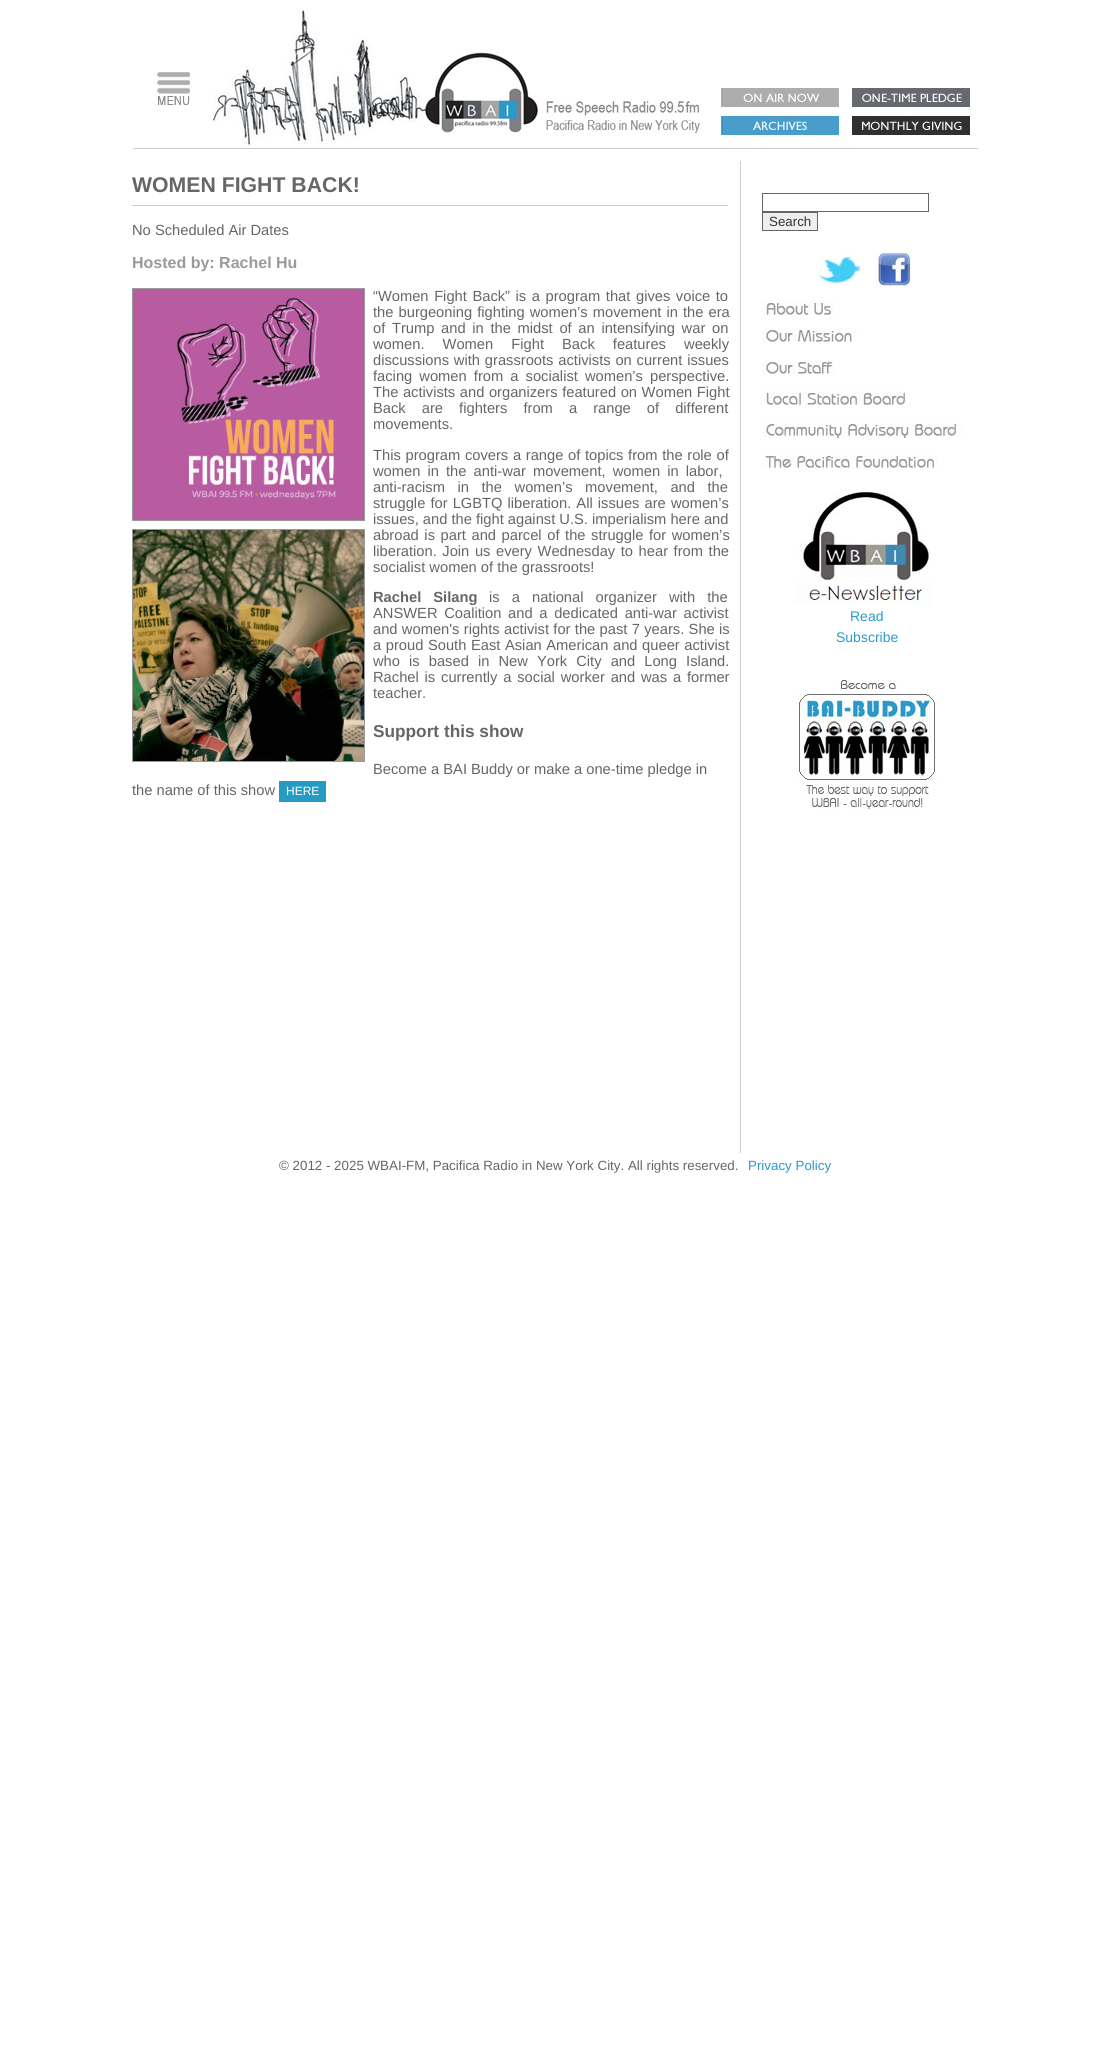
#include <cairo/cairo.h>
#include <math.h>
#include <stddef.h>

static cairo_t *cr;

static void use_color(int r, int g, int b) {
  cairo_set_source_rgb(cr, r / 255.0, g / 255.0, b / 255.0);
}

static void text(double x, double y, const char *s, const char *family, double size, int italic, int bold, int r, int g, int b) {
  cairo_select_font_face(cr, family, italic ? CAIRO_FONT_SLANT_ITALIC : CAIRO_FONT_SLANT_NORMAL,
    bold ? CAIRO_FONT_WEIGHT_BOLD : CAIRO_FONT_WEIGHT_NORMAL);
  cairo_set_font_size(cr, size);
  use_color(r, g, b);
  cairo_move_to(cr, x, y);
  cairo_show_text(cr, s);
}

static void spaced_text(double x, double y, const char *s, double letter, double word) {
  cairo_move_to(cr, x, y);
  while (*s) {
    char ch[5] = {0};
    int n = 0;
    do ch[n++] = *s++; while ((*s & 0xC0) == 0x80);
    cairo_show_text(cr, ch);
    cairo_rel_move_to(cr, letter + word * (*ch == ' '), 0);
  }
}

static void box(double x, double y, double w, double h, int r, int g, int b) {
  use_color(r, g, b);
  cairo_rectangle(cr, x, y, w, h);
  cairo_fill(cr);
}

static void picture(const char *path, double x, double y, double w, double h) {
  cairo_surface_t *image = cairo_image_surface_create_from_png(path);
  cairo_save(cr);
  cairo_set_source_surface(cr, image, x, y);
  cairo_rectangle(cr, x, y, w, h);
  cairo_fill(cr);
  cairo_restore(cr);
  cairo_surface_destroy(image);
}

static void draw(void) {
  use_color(255, 255, 255);
  cairo_paint(cr);
  box(133, 148, 845, 1, 204, 204, 204);
  picture("img_01.png", 157, 72, 33, 33);
  picture("img_02.png", 212, 10, 488, 135);
  picture("img_03.png", 721, 88, 118, 19);
  picture("img_04.png", 852, 88, 118, 19);
  picture("img_05.png", 721, 116, 118, 19);
  picture("img_06.png", 852, 116, 118, 19);
  box(740, 161, 1, 992, 204, 204, 204);
  box(132, 205, 596, 1, 204, 204, 204);
  cairo_rectangle(cr, 132.5, 288.5, 232, 232);
  use_color(154, 154, 154);
  cairo_set_line_width(cr, 1);
  cairo_stroke(cr);
  picture("img_07.png", 133, 289, 231, 231);
  cairo_rectangle(cr, 132.5, 529.5, 232, 232);
  cairo_stroke(cr);
  picture("img_08.png", 133, 530, 231, 231);
  box(279, 781, 47, 21, 37, 155, 196);
  cairo_rectangle(cr, 762.5, 193.5, 166, 18);
  use_color(102, 102, 102);
  cairo_stroke(cr);
  use_color(239, 239, 239);
  cairo_rectangle(cr, 762.5, 212.5, 55, 18);
  cairo_fill_preserve(cr);
  use_color(102, 102, 102);
  cairo_stroke(cr);
  picture("img_09.png", 816, 252, 48, 33);
  picture("img_10.png", 872, 251, 39, 36);
  picture("img_11.png", 762, 301, 72, 14);
  picture("img_12.png", 762, 328, 95, 14);
  picture("img_13.png", 762, 360, 72, 14);
  picture("img_14.png", 763, 391, 143, 14);
  picture("img_15.png", 763, 423, 199, 15);
  picture("img_16.png", 762, 455, 176, 14);
  picture("img_17.png", 794, 491, 138, 114);
  picture("img_18.png", 795, 680, 144, 131);
  text(132, 192, "WOMEN FIGHT BACK!", "Liberation Sans", 21.25, 0, 1, 102, 102, 102);
  text(132, 235, "No Scheduled Air Dates", "Liberation Sans", 14.7, 0, 0, 102, 102, 102);
  text(132, 268, "Hosted by: Rachel Hu", "Liberation Sans", 16, 0, 1, 154, 154, 154);
  cairo_select_font_face(cr, "Liberation Sans", CAIRO_FONT_SLANT_NORMAL, CAIRO_FONT_WEIGHT_NORMAL);
  cairo_set_font_size(cr, 14.7);
  use_color(102, 102, 102);
  spaced_text(373, 301, "“Women Fight Back” is a program that gives voice to", 0, 1.5);
  spaced_text(373, 317, "the burgeoning fighting women’s movement in the era", 0, 1);
  spaced_text(373, 333, "of Trump and in the midst of an intensifying war on", 0, 2.6);
  spaced_text(373, 349, "women. Women Fight Back features weekly", 0, 14);
  spaced_text(373, 365, "discussions with grassroots activists on current issues", 0, 0.75);
  spaced_text(373, 381, "facing women from a socialist women’s perspective.", 0, 3);
  spaced_text(373, 397, "The activists and organizers featured on Women Fight", 0, 0.5);
  spaced_text(373, 413, "Back are fighters from a range of different", 0, 12);
  text(373, 429, "movements.", "Liberation Sans", 14.7, 0, 0, 102, 102, 102);
  spaced_text(373, 460, "This program covers a range of topics from the role of", 0, 0.6);
  spaced_text(373, 476, "women in the anti-war movement, women in labor,", 0, 3);
  spaced_text(373, 492, "anti-racism in the women’s movement, and the", 0, 8.5);
  spaced_text(373, 508, "struggle for LGBTQ liberation. All issues are women’s", 0, 1);
  text(373, 524, "issues, and the fight against U.S. imperialism here and", "Liberation Sans", 14.7, 0, 0, 102, 102, 102);
  spaced_text(373, 540, "abroad is part and parcel of the struggle for women’s", 0, 1.5);
  spaced_text(373, 556, "liberation. Join us every Wednesday to hear from the", 0, 1.5);
  text(373, 572, "socialist women of the grassroots!", "Liberation Sans", 14.7, 0, 0, 102, 102, 102);
  cairo_select_font_face(cr, "Liberation Sans", CAIRO_FONT_SLANT_NORMAL, CAIRO_FONT_WEIGHT_BOLD);
  spaced_text(373, 602, "Rachel Silang", 0, 8);
  cairo_select_font_face(cr, "Liberation Sans", CAIRO_FONT_SLANT_NORMAL, CAIRO_FONT_WEIGHT_NORMAL);
  spaced_text(489, 602, "is a national organizer with the", 0, 8);
  spaced_text(373, 618, "ANSWER Coalition and a dedicated anti-war activist", 0, 2.6);
  spaced_text(373, 634, "and women's rights activist for the past 7 years. She is", 0, 0.25);
  spaced_text(373, 650, "a proud South East Asian American and queer activist", 0, 0.5);
  spaced_text(373, 666, "who is based in New York City and Long Island.", 0, 5);
  spaced_text(373, 682, "Rachel is currently a social worker and was a former", 0, 1.75);
  text(373, 698, "teacher.", "Liberation Sans", 14.7, 0, 0, 102, 102, 102);
  text(373, 737, "Support this show", "Liberation Sans", 17.25, 0, 1, 102, 102, 102);
  text(373, 774, "Become a BAI Buddy or make a one-time pledge in", "Liberation Sans", 14.7, 0, 0, 102, 102, 102);
  text(132, 795, "the name of this show", "Liberation Sans", 14.7, 0, 0, 102, 102, 102);
  text(286, 795, "HERE", "Liberation Sans", 12, 0, 0, 255, 255, 255);
  text(769, 226, "Search", "Liberation Sans", 13.35, 0, 0, 51, 51, 51);
  text(850, 621, "Read", "Liberation Sans", 14, 0, 0, 43, 154, 202);
  text(836, 642, "Subscribe", "Liberation Sans", 14, 0, 0, 43, 154, 202);
  text(279, 1170, "© 2012 - 2025 WBAI-FM, Pacifica Radio in New York City. All rights reserved.", "Liberation Sans", 13.35, 0, 0, 102, 102, 102);
  text(748, 1170, "Privacy Policy", "Liberation Sans", 13.35, 0, 0, 43, 154, 202);
}

int main(void) {
  cairo_surface_t *surface = cairo_image_surface_create(CAIRO_FORMAT_RGB24, 1110, 2045);
  cr = cairo_create(surface);
  cairo_font_options_t *options = cairo_font_options_create();
  cairo_font_options_set_hint_metrics(options, CAIRO_HINT_METRICS_OFF);
  cairo_font_options_set_hint_style(options, CAIRO_HINT_STYLE_NONE);
  cairo_set_font_options(cr, options);
  cairo_set_miter_limit(cr, 4);
  draw();
  cairo_surface_write_to_png(surface, "out.png");
  cairo_font_options_destroy(options);
  cairo_destroy(cr);
  cairo_surface_destroy(surface);
  return 0;
}
